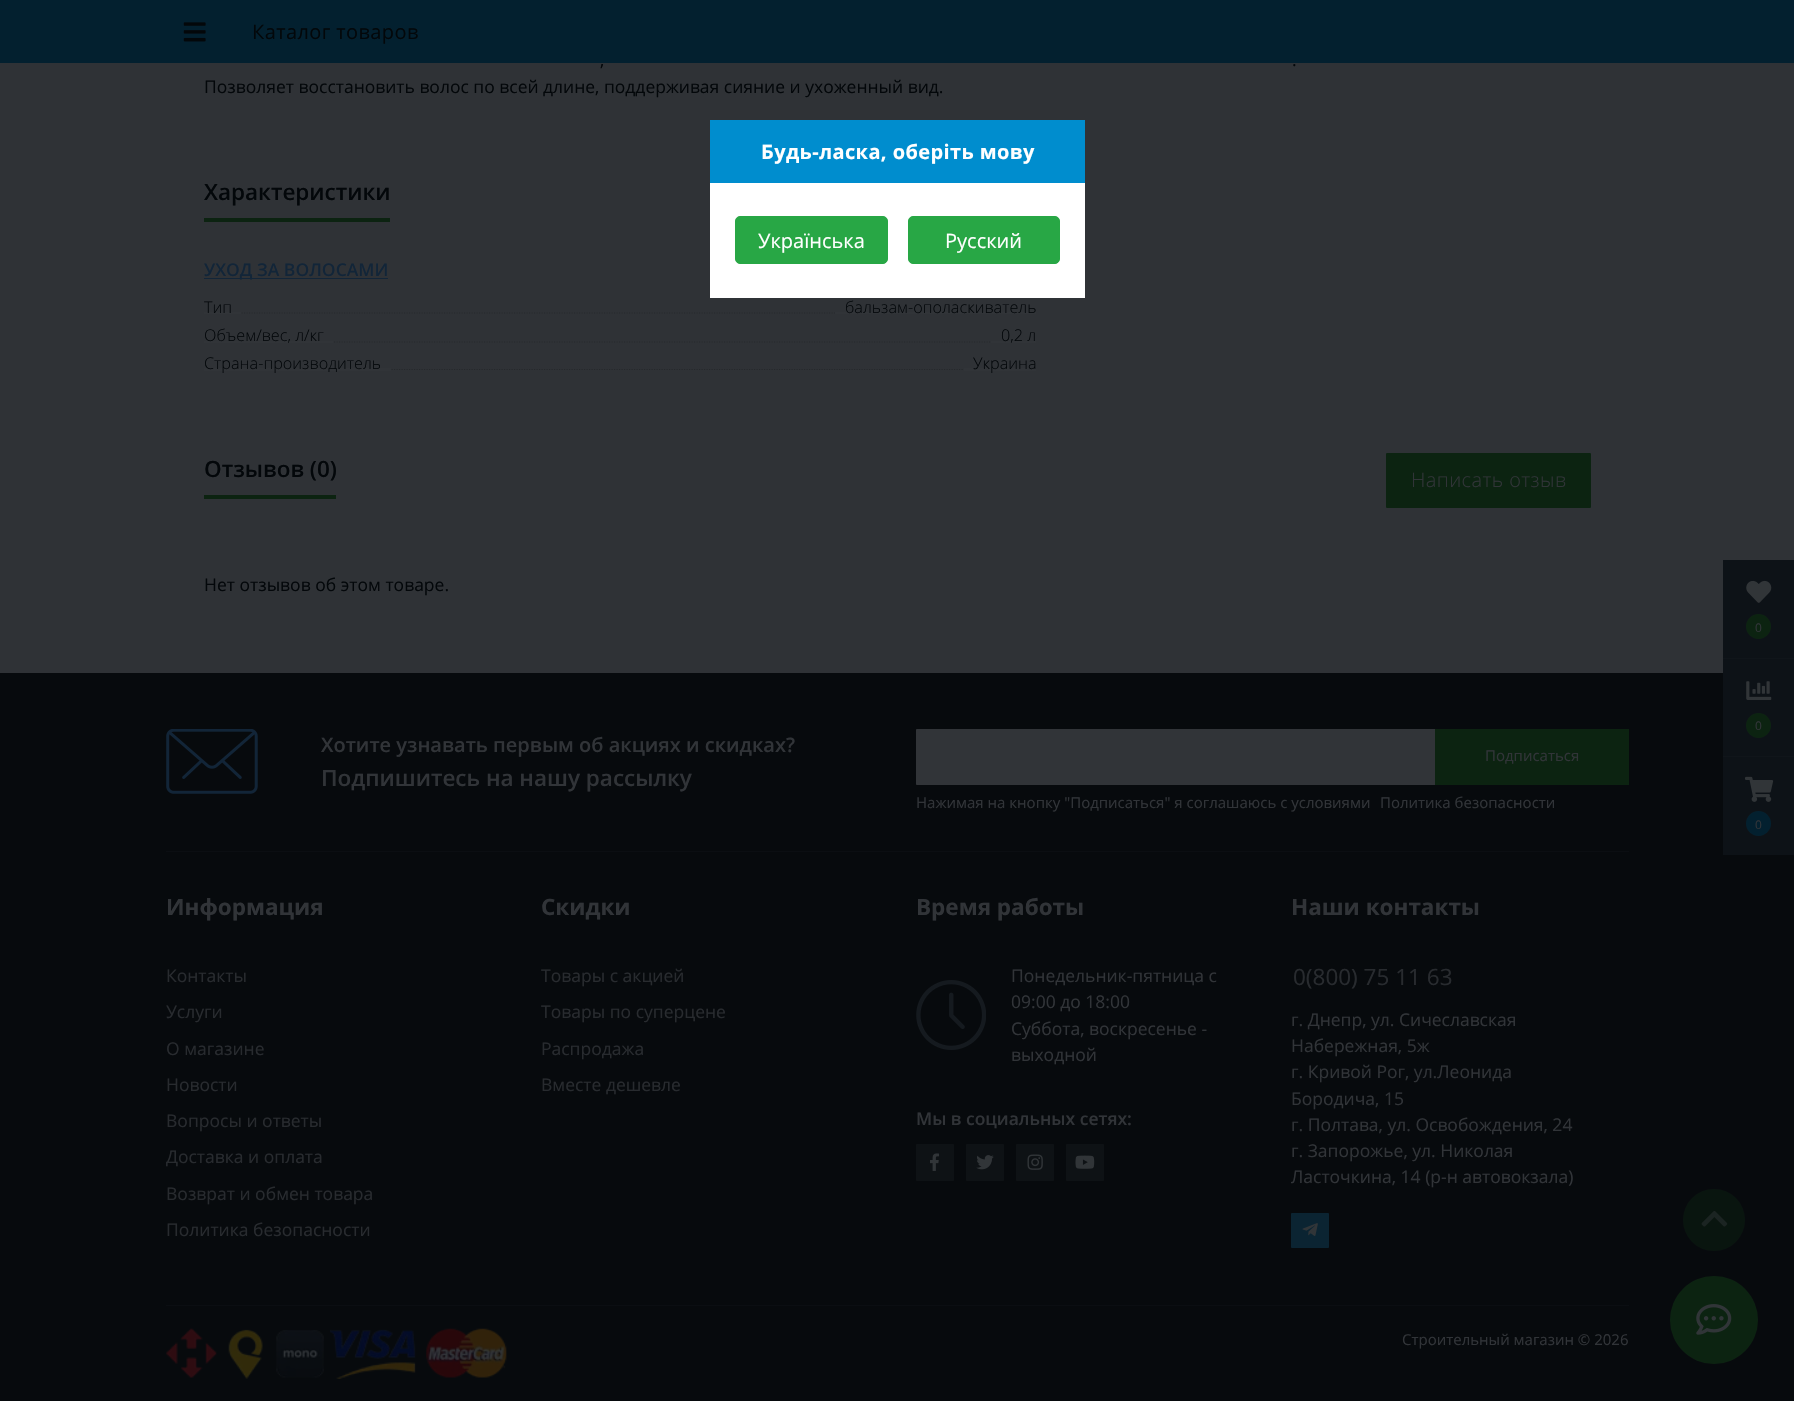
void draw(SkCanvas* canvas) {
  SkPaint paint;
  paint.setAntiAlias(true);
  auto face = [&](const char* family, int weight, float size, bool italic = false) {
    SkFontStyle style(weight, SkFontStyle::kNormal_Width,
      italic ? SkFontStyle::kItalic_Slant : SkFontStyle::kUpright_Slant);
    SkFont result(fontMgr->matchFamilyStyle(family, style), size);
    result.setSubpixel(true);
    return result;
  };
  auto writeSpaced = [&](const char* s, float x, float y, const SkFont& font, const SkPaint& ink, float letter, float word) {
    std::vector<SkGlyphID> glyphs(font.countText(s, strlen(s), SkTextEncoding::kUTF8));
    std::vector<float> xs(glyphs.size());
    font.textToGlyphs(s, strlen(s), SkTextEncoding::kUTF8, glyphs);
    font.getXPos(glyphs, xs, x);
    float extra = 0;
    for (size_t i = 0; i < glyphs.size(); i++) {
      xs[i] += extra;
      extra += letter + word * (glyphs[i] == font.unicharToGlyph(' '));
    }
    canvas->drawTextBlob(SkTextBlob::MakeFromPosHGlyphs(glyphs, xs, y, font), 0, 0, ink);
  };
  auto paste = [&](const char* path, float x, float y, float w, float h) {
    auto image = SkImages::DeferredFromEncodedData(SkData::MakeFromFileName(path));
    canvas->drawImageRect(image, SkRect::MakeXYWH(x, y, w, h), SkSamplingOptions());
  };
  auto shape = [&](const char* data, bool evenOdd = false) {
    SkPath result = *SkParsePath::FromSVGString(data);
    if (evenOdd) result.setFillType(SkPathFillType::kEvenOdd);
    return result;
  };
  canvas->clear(0xff2f3236);
  paint.setColor(0xff03202f);
  canvas->drawRect(SkRect::MakeXYWH(0, 0, 1794, 63), paint);
  paste("img/1.png", 183, 22, 23, 20);
  paint.setColor(0xff0c2311);
  canvas->drawRect(SkRect::MakeXYWH(204, 218, 186, 4), paint);
  paint.setColor(0xff122538);
  canvas->drawRect(SkRect::MakeXYWH(204, 278, 184, 1), paint);
  paint.setStroke(true);
  paint.setStrokeWidth(1.2f);
  paint.setColor(0xff25282b);
  paint.setPathEffect(SkDashPathEffect::Make({{1.25f, 1.25f}}, 0));
  canvas->drawPath(shape("M204 313H1036"), paint);
  paint.setPathEffect(nullptr);
  paint.setStroke(false);
  paint.setColor(0xff313438);
  canvas->drawRect(SkRect::MakeXYWH(204, 312, 37, 2), paint);
  canvas->drawRect(SkRect::MakeXYWH(835, 312, 201, 2), paint);
  paint.setStroke(true);
  paint.setColor(0xff25282b);
  paint.setPathEffect(SkDashPathEffect::Make({{1.25f, 1.25f}}, 0));
  canvas->drawPath(shape("M204 342H1036"), paint);
  paint.setPathEffect(nullptr);
  paint.setStroke(false);
  paint.setColor(0xff313438);
  canvas->drawRect(SkRect::MakeXYWH(204, 341, 129, 2), paint);
  canvas->drawRect(SkRect::MakeXYWH(991, 341, 45, 2), paint);
  paint.setStroke(true);
  paint.setColor(0xff25282b);
  paint.setPathEffect(SkDashPathEffect::Make({{1.25f, 1.25f}}, 0));
  canvas->drawPath(shape("M204 369.5H1036"), paint);
  paint.setPathEffect(nullptr);
  paint.setStroke(false);
  {
    const struct { float x, y, w, h; SkColor color; } items[] = {
      {204, 368, 187, 3, 0xff313438},
      {964, 368, 72, 3, 0xff313438},
      {204, 495, 132, 4, 0xff0c2311},
    };
    for (auto [x, y, w, h, color] : items) {
      paint.setColor(color);
      canvas->drawRect(SkRect::MakeXYWH(x, y, w, h), paint);
    }
  }
  canvas->drawRoundRect(SkRect::MakeXYWH(1386, 453, 205, 55), 1, 1, paint);
  paint.setColor(0xff008dce);
  canvas->drawRect(SkRect::MakeXYWH(710, 120, 375, 63), paint);
  paint.setColor(0xffffffff);
  canvas->drawRect(SkRect::MakeXYWH(710, 183, 375, 115), paint);
  paint.setColor(0xff28a745);
  canvas->drawRoundRect(SkRect::MakeXYWH(735.5f, 216.5f, 152, 47), 4.5f, 4.5f, paint);
  paint.setStroke(true);
  paint.setStrokeWidth(1);
  canvas->drawRoundRect(SkRect::MakeXYWH(735.5f, 216.5f, 152, 47), 4.5f, 4.5f, paint);
  paint.setStroke(false);
  canvas->drawRoundRect(SkRect::MakeXYWH(908.5f, 216.5f, 151, 47), 4.5f, 4.5f, paint);
  paint.setStroke(true);
  canvas->drawRoundRect(SkRect::MakeXYWH(908.5f, 216.5f, 151, 47), 4.5f, 4.5f, paint);
  paint.setStroke(false);
  paint.setColor(0xff070a0d);
  canvas->drawRect(SkRect::MakeXYWH(0, 673, 1794, 728), paint);
  paste("img/2.png", 166, 729, 92, 65);
  paint.setColor(0xff313438);
  canvas->drawPath(shape("M917 729H1435V785H917C916.5 785 916 784.5 916 784V730C916 729.5 916.5 729 917 729Z"), paint);
  paint.setColor(0xff0c2311);
  canvas->drawRect(SkRect::MakeXYWH(1435, 729, 194, 56), paint);
  paint.setColor(0xff0b0e12);
  canvas->drawRect(SkRect::MakeXYWH(166, 851, 1463, 1), paint);
  paste("img/3.png", 916, 980, 70, 70);
  paint.setColor(0xff0e1215);
  canvas->drawRoundRect(SkRect::MakeXYWH(916, 1144, 38, 37), 1, 1, paint);
  paste("img/4.png", 930, 1153, 10, 18);
  canvas->drawRoundRect(SkRect::MakeXYWH(966, 1144, 38, 37), 1, 1, paint);
  paste("img/5.png", 976, 1155, 18, 15);
  canvas->drawRoundRect(SkRect::MakeXYWH(1016, 1144, 38, 37), 1, 1, paint);
  paste("img/6.png", 1027, 1154, 16, 16);
  canvas->drawRoundRect(SkRect::MakeXYWH(1066, 1144, 38, 37), 1, 1, paint);
  paste("img/7.png", 1075, 1155, 20, 14);
  paint.setColor(0xff0b2432);
  canvas->drawRoundRect(SkRect::MakeXYWH(1291, 1213, 38, 35), 1, 1, paint);
  paste("img/8.png", 1302, 1223, 16, 13);
  paint.setColor(0xff0b0e12);
  canvas->drawRect(SkRect::MakeXYWH(166, 1305, 1463, 1), paint);
  paste("img/9.png", 166, 1328, 51, 50);
  paste("img/10.png", 228, 1329, 35, 50);
  paste("img/11.png", 276, 1330, 48, 48);
  paste("img/12.png", 330, 1329, 86, 50);
  paste("img/13.png", 426, 1328, 81, 50);
  paint.setColor(0xff09150f);
  canvas->drawCircle(1714, 1220, 31, paint);
  paste("img/14.png", 1701, 1211, 27, 16);
  paint.setColor(0xff0c2311);
  canvas->drawCircle(1714, 1320, 44, paint);
  paste("img/15.png", 1696, 1304, 36, 31);
  paint.setColor(0xff0d1217);
  canvas->drawRect(SkRect::MakeXYWH(1723, 560, 71, 295), paint);
  paste("img/16.png", 1746, 580, 26, 23);
  paint.setColor(0xff0c2311);
  canvas->drawCircle(1758.5f, 626.5f, 12.5f, paint);
  paint.setColor(0xff10151a);
  canvas->drawRect(SkRect::MakeXYWH(1723, 658, 71, 1), paint);
  paste("img/17.png", 1746, 681, 26, 19);
  paint.setColor(0xff0c2311);
  canvas->drawCircle(1758.5f, 725.5f, 12.5f, paint);
  paint.setColor(0xff10151a);
  canvas->drawRect(SkRect::MakeXYWH(1723, 756, 71, 1), paint);
  paste("img/18.png", 1745, 776, 29, 26);
  paint.setColor(0xff03202f);
  canvas->drawCircle(1758.5f, 823.5f, 12.5f, paint);
  auto f0 = face("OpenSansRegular", 400, 20);
  paint.setColor(0xff03070a);
  writeSpaced("Каталог товаров", 252, 39, f0, paint, 0.4f, 0);
  auto f1 = face("OpenSansRegular", 400, 17.5f);
  {
    const struct { const char* s; float x, y; } items[] = {
      {",", 600, 66},
      {".", 1292, 66},
      {"Позволяет восстановить волос по всей длине, поддерживая сияние и ухоженный вид.", 204, 93},
    };
    for (auto [s, x, y] : items) {
      canvas->drawString(s, x, y, f1, paint);
    }
  }
  auto f2 = face("Open Sans", 600, 22.5f);
  canvas->drawString("Характеристики", 204, 200, f2, paint);
  auto f3 = face("Open Sans", 600, 17.5f);
  paint.setColor(0xff122538);
  canvas->drawString("УХОД ЗА ВОЛОСАМИ", 204, 276, f3, paint);
  auto f4 = face("Open Sans", 300, 16.25f);
  paint.setColor(0xff03070a);
  {
    const struct { const char* s; float x, y; } items[] = {
      {"Тип", 204, 313},
      {"бальзам-ополаскиватель", 845, 313},
      {"Объем/вес, л/кг", 204, 341},
      {"0,2 л", 1001, 341},
      {"Страна-производитель", 204, 369},
      {"Украина", 973, 369},
    };
    for (auto [s, x, y] : items) {
      canvas->drawString(s, x, y, f4, paint);
    }
  }
  canvas->drawString("Отзывов (0)", 204, 477, f2, paint);
  auto f5 = face("Open Sans", 300, 20);
  paint.setColor(0xff313438);
  writeSpaced("Написать отзыв", 1411, 487, f5, paint, 0.4f, 0);
  paint.setColor(0xff03070a);
  canvas->drawString("Нет отзывов об этом товаре.", 204, 591, f1, paint);
  auto f6 = face("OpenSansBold", 700, 20);
  paint.setColor(0xffffffff);
  writeSpaced("Будь-ласка, оберіть мову", 761, 159, f6, paint, 0.4f, 0);
  canvas->drawString("Українська", 758, 248, f0, paint);
  canvas->drawString("Русский", 945, 248, f0, paint);
  auto f7 = face("Open Sans", 600, 20);
  paint.setColor(0xff313438);
  canvas->drawString("Хотите узнавать первым об акциях и скидках?", 321, 752, f7, paint);
  canvas->drawString("Подпишитесь на нашу рассылку", 321, 786, f2, paint);
  auto f8 = face("OpenSansRegular", 400, 15);
  {
    const struct { const char* s; float x, y; } items[] = {
      {"Подписаться", 1485, 761},
      {"Нажимая на кнопку \"Подписаться\" я соглашаюсь с условиями", 916, 808},
      {"Политика безопасности", 1380, 808},
    };
    for (auto [s, x, y] : items) {
      canvas->drawString(s, x, y, f8, paint);
    }
  }
  auto f9 = face("OpenSansBold", 700, 22.5f);
  canvas->drawString("Информация", 166, 915, f9, paint);
  paint.setColor(0xff282b2f);
  {
    const struct { const char* s; float x, y; } items[] = {
      {"Контакты", 166, 982},
      {"Услуги", 166, 1018},
      {"О магазине", 166, 1055},
      {"Новости", 166, 1091},
      {"Вопросы и ответы", 166, 1127},
      {"Доставка и оплата", 166, 1163},
      {"Возврат и обмен товара", 166, 1200},
      {"Политика безопасности", 166, 1236},
    };
    for (auto [s, x, y] : items) {
      canvas->drawString(s, x, y, f1, paint);
    }
  }
  paint.setColor(0xff313438);
  canvas->drawString("Скидки", 541, 915, f9, paint);
  paint.setColor(0xff282b2f);
  {
    const struct { const char* s; float x, y; } items[] = {
      {"Товары с акцией", 541, 982},
      {"Товары по суперцене", 541, 1018},
      {"Распродажа", 541, 1055},
      {"Вместе дешевле", 541, 1091},
    };
    for (auto [s, x, y] : items) {
      canvas->drawString(s, x, y, f1, paint);
    }
  }
  paint.setColor(0xff313438);
  canvas->drawString("Время работы", 916, 915, f9, paint);
  {
    const struct { const char* s; float x, y; } items[] = {
      {"Понедельник-пятница с", 1011, 982},
      {"09:00 до 18:00", 1011, 1008},
      {"Суббота, воскресенье -", 1011, 1035},
      {"выходной", 1011, 1061},
    };
    for (auto [s, x, y] : items) {
      canvas->drawString(s, x, y, f1, paint);
    }
  }
  canvas->drawString("Мы в социальных сетях:", 916, 1125, f3, paint);
  canvas->drawString("Наши контакты", 1291, 915, f9, paint);
  auto f10 = face("OpenSansRegular", 400, 22.5f);
  paint.setColor(0xff282b2f);
  canvas->drawString("0(800) 75 11 63", 1293, 985, f10, paint);
  paint.setColor(0xff313438);
  {
    const struct { const char* s; float x, y; } items[] = {
      {"г. Днепр, ул. Сичеславская", 1291, 1026},
      {"Набережная, 5ж", 1291, 1052},
      {"г. Кривой Рог, ул.Леонида", 1291, 1078},
      {"Бородича, 15", 1291, 1105},
      {"г. Полтава, ул. Освобождения, 24", 1291, 1131},
      {"г. Запорожье, ул. Николая", 1291, 1157},
      {"Ласточкина, 14 (р-н автовокзала)", 1291, 1183},
    };
    for (auto [s, x, y] : items) {
      canvas->drawString(s, x, y, f1, paint);
    }
  }
  canvas->drawString("Строительный магазин © 2026", 1402, 1345, f8, paint);
  auto f11 = face("OpenSansRegular", 400, 12);
  {
    const struct { const char* s; float x, y; } items[] = {
      {"0", 1755, 632},
      {"0", 1755, 730},
      {"0", 1755, 829},
    };
    for (auto [s, x, y] : items) {
      canvas->drawString(s, x, y, f11, paint);
    }
  }
}
